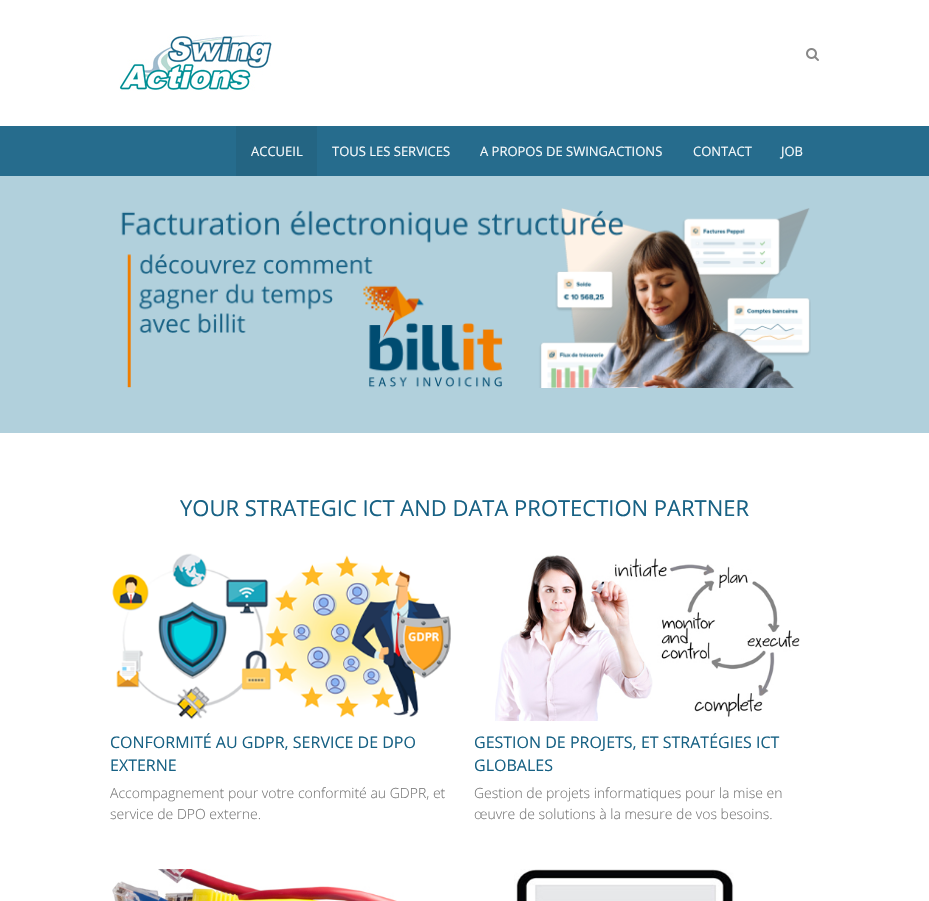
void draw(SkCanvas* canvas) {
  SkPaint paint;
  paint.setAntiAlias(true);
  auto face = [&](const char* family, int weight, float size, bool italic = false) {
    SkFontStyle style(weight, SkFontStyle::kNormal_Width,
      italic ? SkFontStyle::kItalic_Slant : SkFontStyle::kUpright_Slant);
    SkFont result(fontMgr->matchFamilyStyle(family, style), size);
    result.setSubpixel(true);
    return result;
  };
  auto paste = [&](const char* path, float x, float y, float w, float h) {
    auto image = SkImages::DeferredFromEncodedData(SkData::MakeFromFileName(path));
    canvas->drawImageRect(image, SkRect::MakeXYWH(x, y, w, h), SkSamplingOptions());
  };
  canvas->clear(0xffffffff);
  paste("img/1.png", 119, 35, 153, 56);
  paste("img/2.png", 806, 48, 13, 13);
  {
    const struct { float x, y, w, h; SkColor color; } items[] = {
      {0, 176, 929, 257, 0xffb1d0dc},
      {0, 126, 929, 50, 0xff266c8d},
      {236, 126, 81, 50, 0xff246583},
    };
    for (auto [x, y, w, h, color] : items) {
      paint.setColor(color);
      canvas->drawRect(SkRect::MakeXYWH(x, y, w, h), paint);
    }
  }
  paste("img/3.png", 121, 208, 690, 180);
  paste("img/4.png", 112, 553, 339, 167);
  paste("img/5.png", 495, 555, 305, 166);
  paste("img/6.png", 112, 869, 285, 32);
  paste("img/7.png", 514, 869, 220, 32);
  auto f0 = face("Open Sans", 400, 13);
  paint.setColor(0xfff7fafc);
  {
    const struct { const char* s; float x, y; } items[] = {
      {"ACCUEIL", 251, 156},
      {"TOUS LES SERVICES", 332, 156},
      {"A PROPOS DE SWINGACTIONS", 480, 156},
      {"CONTACT", 693, 156},
      {"JOB", 781, 156},
    };
    for (auto [s, x, y] : items) {
      canvas->drawString(s, x, y, f0, paint);
    }
  }
  auto f1 = face("Open Sans", 400, 22);
  paint.setColor(0xff176184);
  canvas->drawString("YOUR STRATEGIC ICT AND DATA PROTECTION PARTNER", 180, 516, f1, paint);
  auto f2 = face("Open Sans", 400, 16);
  canvas->drawString("CONFORMITÉ AU GDPR, SERVICE DE DPO", 110, 748, f2, paint);
  canvas->drawString("EXTERNE", 110, 771, f2, paint);
  auto f3 = face("Open Sans", 300, 14);
  paint.setColor(0xff777777);
  canvas->drawString("Accompagnement pour votre conformité au GDPR, et", 110, 798, f3, paint);
  canvas->drawString("service de DPO externe.", 110, 819, f3, paint);
  paint.setColor(0xff176184);
  canvas->drawString("GESTION DE PROJETS, ET STRATÉGIES ICT", 474, 748, f2, paint);
  canvas->drawString("GLOBALES", 474, 771, f2, paint);
  paint.setColor(0xff777777);
  canvas->drawString("Gestion de projets informatiques pour la mise en", 474, 798, f3, paint);
  canvas->drawString("œuvre de solutions à la mesure de vos besoins.", 474, 819, f3, paint);
}
